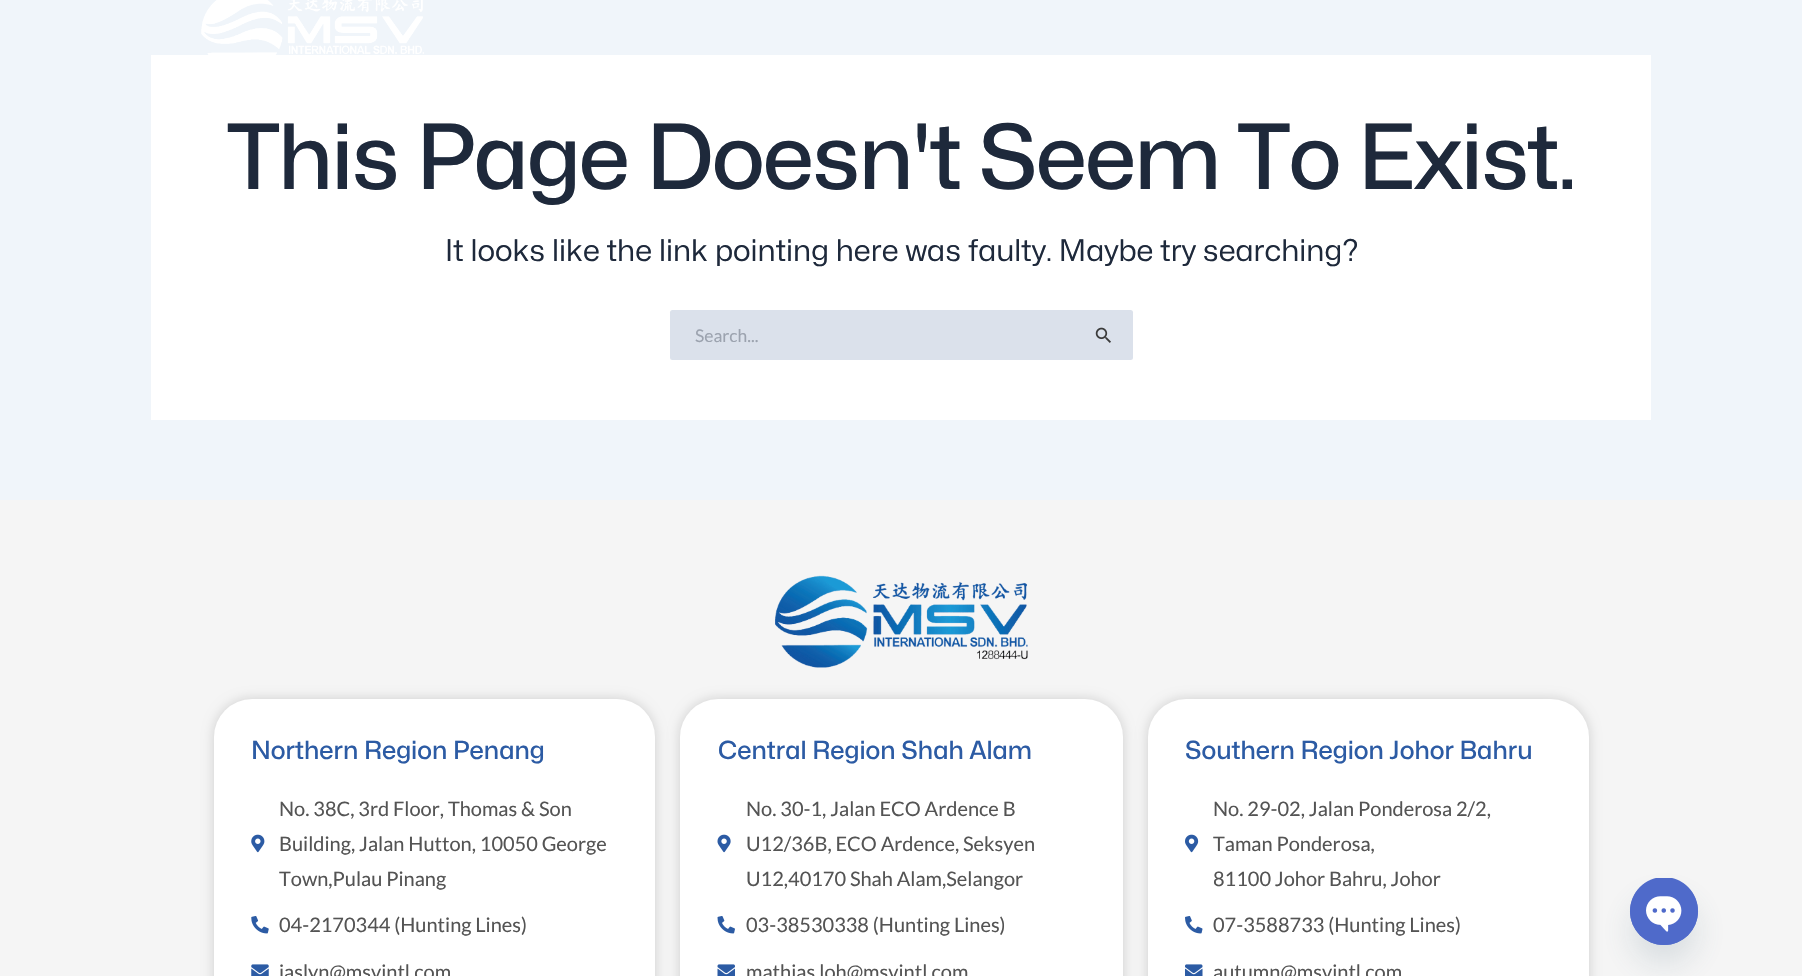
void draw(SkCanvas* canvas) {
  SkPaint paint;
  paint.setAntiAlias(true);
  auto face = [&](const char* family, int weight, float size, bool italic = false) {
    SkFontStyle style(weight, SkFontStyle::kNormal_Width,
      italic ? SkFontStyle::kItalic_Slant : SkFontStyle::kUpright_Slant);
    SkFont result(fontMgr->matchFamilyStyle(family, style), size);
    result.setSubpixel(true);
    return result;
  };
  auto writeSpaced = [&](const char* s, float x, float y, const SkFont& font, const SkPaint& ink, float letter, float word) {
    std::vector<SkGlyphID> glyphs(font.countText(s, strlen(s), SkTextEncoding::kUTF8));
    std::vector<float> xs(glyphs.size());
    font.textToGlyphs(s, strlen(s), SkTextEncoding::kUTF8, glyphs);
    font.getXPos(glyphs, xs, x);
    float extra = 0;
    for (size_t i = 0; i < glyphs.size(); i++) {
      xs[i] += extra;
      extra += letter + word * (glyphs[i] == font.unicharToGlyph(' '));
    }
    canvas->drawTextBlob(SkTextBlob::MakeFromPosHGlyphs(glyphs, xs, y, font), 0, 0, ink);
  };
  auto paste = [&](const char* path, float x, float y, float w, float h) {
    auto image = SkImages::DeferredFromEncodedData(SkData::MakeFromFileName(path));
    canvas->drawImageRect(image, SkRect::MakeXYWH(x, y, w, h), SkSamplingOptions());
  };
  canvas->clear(0xfff0f5fa);
  paste("img/1.png", 201, 0, 223, 55);
  paint.setColor(0xffffffff);
  canvas->drawRect(SkRect::MakeXYWH(151, 55, 1500, 365), paint);
  paint.setColor(0xffdbe1eb);
  canvas->drawRoundRect(SkRect::MakeXYWH(670, 310, 463, 50), 2.5f, 2.5f, paint);
  paste("img/2.png", 1095, 327, 16, 16);
  paint.setColor(0xfff5f5f5);
  canvas->drawRect(SkRect::MakeXYWH(0, 500, 1802, 476), paint);
  paste("img/3.png", 775, 575, 253, 93);
  paint.setColor(0x29000000);
  paint.setMaskFilter(SkMaskFilter::MakeBlur(kNormal_SkBlurStyle, 6));
  canvas->drawRoundRect(SkRect::MakeXYWH(214, 699, 441, 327), 38, 38, paint);
  paint.setMaskFilter(nullptr);
  paint.setColor(0xffffffff);
  canvas->drawRoundRect(SkRect::MakeXYWH(214, 699, 441, 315), 38, 38, paint);
  paste("img/4.png", 251, 834, 14, 19);
  paste("img/5.png", 251, 916, 18, 18);
  paste("img/6.png", 251, 964, 18, 12);
  paint.setColor(0x29000000);
  paint.setMaskFilter(SkMaskFilter::MakeBlur(kNormal_SkBlurStyle, 6));
  canvas->drawRoundRect(SkRect::MakeXYWH(680, 699, 443, 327), 38, 38, paint);
  paint.setMaskFilter(nullptr);
  paint.setColor(0xffffffff);
  canvas->drawRoundRect(SkRect::MakeXYWH(680, 699, 443, 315), 38, 38, paint);
  paste("img/7.png", 717, 834, 14, 19);
  paste("img/8.png", 717, 916, 18, 18);
  paste("img/9.png", 717, 964, 18, 12);
  paint.setColor(0x29000000);
  paint.setMaskFilter(SkMaskFilter::MakeBlur(kNormal_SkBlurStyle, 6));
  canvas->drawRoundRect(SkRect::MakeXYWH(1148, 699, 441, 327), 38, 38, paint);
  paint.setMaskFilter(nullptr);
  paint.setColor(0xffffffff);
  canvas->drawRoundRect(SkRect::MakeXYWH(1148, 699, 441, 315), 38, 38, paint);
  paste("img/10.png", 1185, 834, 14, 19);
  paste("img/11.png", 1185, 916, 18, 18);
  paste("img/12.png", 1185, 964, 18, 12);
  paint.setColor(0x2949687e);
  paint.setMaskFilter(SkMaskFilter::MakeBlur(kNormal_SkBlurStyle, 15));
  canvas->drawRoundRect(SkRect::MakeXYWH(1630, 898, 68, 67), 33.5f, 33.5f, paint);
  paint.setMaskFilter(nullptr);
  paint.setColor(0xff4f6aca);
  canvas->drawRoundRect(SkRect::MakeXYWH(1630, 878, 68, 67), 33.5f, 33.5f, paint);
  paste("img/13.png", 1630, 878, 68, 67);
  auto f0 = face("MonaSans", 500, 90);
  paint.setColor(0xff1e293b);
  writeSpaced("This Page Doesn't Seem To Exist.", 227, 189, f0, paint, -2, 0);
  auto f1 = face("MonaSans", 400, 30, true);
  canvas->drawString("It looks like the link pointing here was faulty. Maybe try searching?", 445, 261, f1, paint);
  auto f2 = face("Lato", 400, 17.5f);
  paint.setColor(0xff9ca3af);
  canvas->drawString("Search...", 695, 342, f2, paint);
  auto f3 = face("MonaSans", 500, 25);
  paint.setColor(0xff2c5ba4);
  canvas->drawString("Northern Region Penang", 251, 759, f3, paint);
  auto f4 = face("Lato", 400, 20);
  paint.setColor(0xff545454);
  {
    const struct { const char* s; float x, y; } items[] = {
      {"No. 38C, 3rd Floor, Thomas & Son", 279, 816},
      {"Building, Jalan Hutton, 10050 George", 279, 851},
      {"Town,Pulau Pinang", 279, 886},
      {"04-2170344 (Hunting Lines)", 279, 932},
      {"jaslyn@msvintl.com", 279, 979},
    };
    for (auto [s, x, y] : items) {
      canvas->drawString(s, x, y, f4, paint);
    }
  }
  paint.setColor(0xff2c5ba4);
  canvas->drawString("Central Region Shah Alam", 718, 759, f3, paint);
  paint.setColor(0xff545454);
  {
    const struct { const char* s; float x, y; } items[] = {
      {"No. 30-1, Jalan ECO Ardence B", 746, 816},
      {"U12/36B, ECO Ardence, Seksyen", 746, 851},
      {"U12,40170 Shah Alam,Selangor", 746, 886},
      {"03-38530338 (Hunting Lines)", 746, 932},
      {"mathias.loh@msvintl.com", 746, 979},
    };
    for (auto [s, x, y] : items) {
      canvas->drawString(s, x, y, f4, paint);
    }
  }
  paint.setColor(0xff2c5ba4);
  canvas->drawString("Southern Region Johor Bahru", 1185, 759, f3, paint);
  paint.setColor(0xff545454);
  {
    const struct { const char* s; float x, y; } items[] = {
      {"No. 29-02, Jalan Ponderosa 2/2,", 1213, 816},
      {"Taman Ponderosa,", 1213, 851},
      {"81100 Johor Bahru, Johor", 1213, 886},
      {"07-3588733 (Hunting Lines)", 1213, 932},
      {"autumn@msvintl.com", 1213, 979},
    };
    for (auto [s, x, y] : items) {
      canvas->drawString(s, x, y, f4, paint);
    }
  }
}
